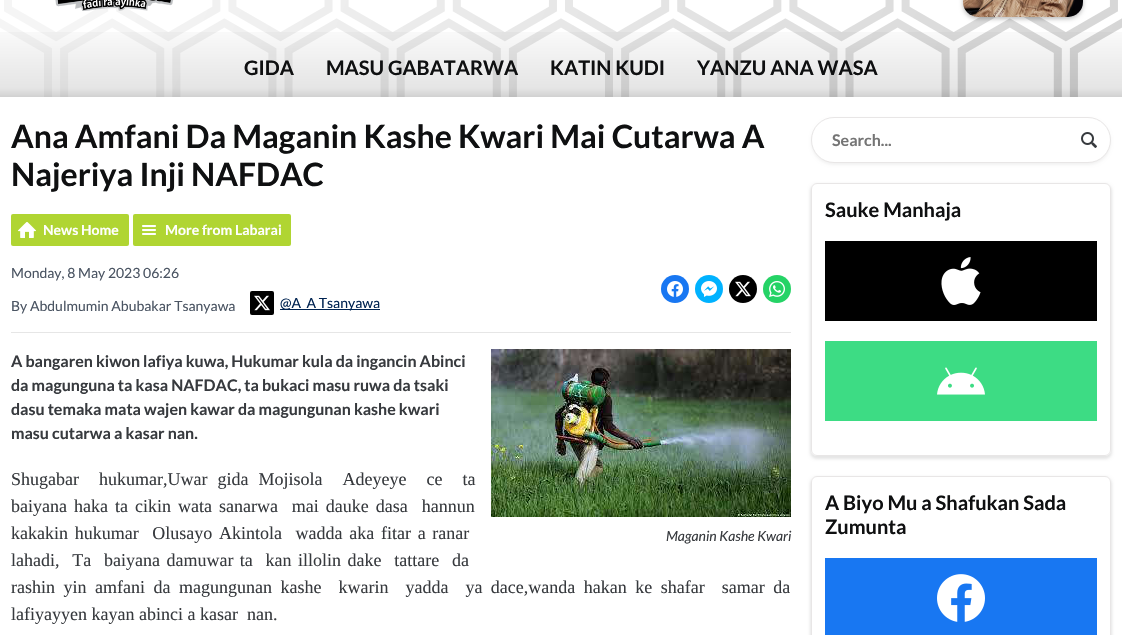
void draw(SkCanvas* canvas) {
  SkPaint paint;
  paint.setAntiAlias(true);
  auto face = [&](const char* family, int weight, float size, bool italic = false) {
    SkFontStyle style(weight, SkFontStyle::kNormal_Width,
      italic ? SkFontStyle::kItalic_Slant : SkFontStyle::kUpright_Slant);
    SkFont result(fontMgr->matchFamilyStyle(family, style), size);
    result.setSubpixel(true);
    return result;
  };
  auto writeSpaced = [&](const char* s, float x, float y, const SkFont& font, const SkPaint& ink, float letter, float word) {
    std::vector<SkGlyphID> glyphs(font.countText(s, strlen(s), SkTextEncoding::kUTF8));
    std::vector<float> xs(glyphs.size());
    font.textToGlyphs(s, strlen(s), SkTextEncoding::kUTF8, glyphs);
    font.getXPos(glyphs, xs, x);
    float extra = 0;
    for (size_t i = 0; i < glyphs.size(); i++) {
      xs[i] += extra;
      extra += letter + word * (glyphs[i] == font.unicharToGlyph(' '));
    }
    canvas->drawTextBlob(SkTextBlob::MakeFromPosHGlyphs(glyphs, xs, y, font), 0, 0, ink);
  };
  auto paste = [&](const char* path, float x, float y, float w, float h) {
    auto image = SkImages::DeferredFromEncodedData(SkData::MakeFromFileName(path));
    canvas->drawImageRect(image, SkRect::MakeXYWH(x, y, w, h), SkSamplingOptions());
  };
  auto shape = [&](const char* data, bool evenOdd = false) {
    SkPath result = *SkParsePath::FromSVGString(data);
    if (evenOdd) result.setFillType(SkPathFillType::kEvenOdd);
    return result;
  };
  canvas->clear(0xffffffff);
  paste("img/1.png", 0, 0, 1122, 97);
  paste("img/2.png", 55, 0, 119, 11);
  paint.setColor(0x40000000);
  paint.setMaskFilter(SkMaskFilter::MakeBlur(kNormal_SkBlurStyle, 2));
  canvas->drawRoundRect(SkRect::MakeXYWH(963, -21, 120, 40), 15, 15, paint);
  paint.setMaskFilter(nullptr);
  paste("img/3.png", 963, 0, 120, 17);
  {
    const SkColor colors[] = {0x00000000, 0x1a000000, 0x2e000000};
    const float stops[] = {0, 0.89f, 1};
    const SkPoint ends[] = {{561, 17}, {561, 97}};
    paint.setShader(SkGradientShader::MakeLinear(ends, colors, stops, 3, SkTileMode::kClamp));
    paint.setAlpha(255);
  }
  canvas->drawRect(SkRect::MakeXYWH(0, 32, 1122, 65), paint);
  paint.setShader(nullptr);
  paint.setColor(0xffb0d532);
  canvas->drawRoundRect(SkRect::MakeXYWH(11, 214, 118, 32), 2, 2, paint);
  paste("img/4.png", 18, 222, 18, 16);
  canvas->drawRoundRect(SkRect::MakeXYWH(133, 214, 158, 32), 2, 2, paint);
  paste("img/5.png", 142, 225, 14, 10);
  paint.setColor(0xffe6e6e6);
  canvas->drawRect(SkRect::MakeXYWH(11, 332, 780, 1), paint);
  paint.setColor(0xff000000);
  canvas->drawRoundRect(SkRect::MakeXYWH(250, 291, 24, 24), 2, 2, paint);
  paste("img/6.png", 254, 295, 16, 16);
  paint.setColor(0xff002351);
  canvas->drawRect(SkRect::MakeXYWH(280, 309, 100, 1), paint);
  paint.setColor(0xff1877f2);
  canvas->drawCircle(675, 289, 14, paint);
  paste("img/7.png", 667, 281, 16, 16);
  paint.setColor(0xff00b2ff);
  canvas->drawCircle(709, 289, 14, paint);
  paste("img/8.png", 701, 281, 16, 16);
  paint.setColor(0xff000000);
  canvas->drawCircle(743, 289, 14, paint);
  paste("img/6.png", 735, 281, 16, 16);
  paint.setColor(0xff25d366);
  canvas->drawCircle(777, 289, 14, paint);
  paste("img/9.png", 769, 281, 16, 16);
  paste("img/10.png", 491, 349, 300, 168);
  paint.setColor(0x0d000000);
  paint.setMaskFilter(SkMaskFilter::MakeBlur(kNormal_SkBlurStyle, 1.5f));
  canvas->drawRoundRect(SkRect::MakeXYWH(811, 119, 300, 46), 23, 23, paint);
  paint.setMaskFilter(nullptr);
  paint.setColor(0xffffffff);
  canvas->drawRoundRect(SkRect::MakeXYWH(811.5f, 117.5f, 299, 45), 22.5f, 22.5f, paint);
  paint.setStroke(true);
  paint.setStrokeWidth(1);
  paint.setColor(0xffe8e6e6);
  canvas->drawRoundRect(SkRect::MakeXYWH(811.5f, 117.5f, 299, 45), 22.5f, 22.5f, paint);
  paste("img/11.png", 1081, 132, 16, 16);
  canvas->save();
  canvas->clipPath(shape("M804 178H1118V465H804ZM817 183H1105C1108.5 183 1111 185.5 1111 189V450C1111 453.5 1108.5 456 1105 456H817C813.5 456 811 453.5 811 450V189C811 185.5 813.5 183 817 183Z", true), true);
  paint.setStroke(false);
  paint.setColor(0x1a000000);
  paint.setMaskFilter(SkMaskFilter::MakeBlur(kNormal_SkBlurStyle, 1.5f));
  canvas->drawRoundRect(SkRect::MakeXYWH(810, 184, 302, 275), 7, 7, paint);
  paint.setMaskFilter(nullptr);
  canvas->restore();
  paint.setStroke(true);
  paint.setColor(0xffe8e6e6);
  canvas->drawRoundRect(SkRect::MakeXYWH(811.5f, 183.5f, 299, 272), 5.5f, 5.5f, paint);
  paint.setStroke(false);
  paint.setColor(0xff000000);
  canvas->drawRect(SkRect::MakeXYWH(825, 241, 272, 80), paint);
  paste("img/12.png", 941, 257, 40, 48);
  paint.setColor(0xff3ddc84);
  canvas->drawRect(SkRect::MakeXYWH(825, 341, 272, 80), paint);
  paste("img/13.png", 937, 367, 48, 28);
  canvas->save();
  canvas->clipPath(shape("M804 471H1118V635H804ZM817 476H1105C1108.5 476 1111 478.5 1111 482V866C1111 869.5 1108.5 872 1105 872H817C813.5 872 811 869.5 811 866V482C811 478.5 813.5 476 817 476Z", true), true);
  paint.setColor(0x1a000000);
  paint.setMaskFilter(SkMaskFilter::MakeBlur(kNormal_SkBlurStyle, 1.5f));
  canvas->drawRoundRect(SkRect::MakeXYWH(810, 477, 302, 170), 7, 7, paint);
  paint.setMaskFilter(nullptr);
  canvas->restore();
  paint.setStroke(true);
  paint.setColor(0xffe8e6e6);
  canvas->drawRoundRect(SkRect::MakeXYWH(811.5f, 476.5f, 299, 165), 5.5f, 5.5f, paint);
  paint.setStroke(false);
  paint.setColor(0xff1877f2);
  canvas->drawRect(SkRect::MakeXYWH(825, 558, 272, 77), paint);
  paste("img/14.png", 937, 574, 48, 48);
  auto f0 = face("Lato", 700, 20);
  paint.setColor(0xff0f1011);
  {
    const struct { const char* s; float x, y; } items[] = {
      {"GIDA", 244, 75},
      {"MASU GABATARWA", 326, 75},
      {"KATIN KUDI", 550, 75},
      {"YANZU ANA WASA", 697, 75},
    };
    for (auto [s, x, y] : items) {
      canvas->drawString(s, x, y, f0, paint);
    }
  }
  auto f1 = face("Lato", 700, 32);
  canvas->drawString("Ana Amfani Da Maganin Kashe Kwari Mai Cutarwa A", 11, 148, f1, paint);
  canvas->drawString("Najeriya Inji NAFDAC", 11, 186, f1, paint);
  auto f2 = face("Lato", 700, 14);
  paint.setColor(0xffffffff);
  canvas->drawString("News Home", 43, 235, f2, paint);
  canvas->drawString("More from Labarai", 165, 235, f2, paint);
  auto f3 = face("Lato", 400, 14);
  paint.setColor(0xff4b5563);
  canvas->drawString("Monday, 8 May 2023 06:26", 11, 278, f3, paint);
  canvas->drawString("By Abdulmumin Abubakar Tsanyawa", 11, 311, f3, paint);
  paint.setColor(0xff002351);
  canvas->drawString("@A_A Tsanyawa", 280, 308, f3, paint);
  auto f4 = face("Lato", 700, 16);
  paint.setColor(0xff373a3e);
  {
    const struct { const char* s; float x, y; } items[] = {
      {"A bangaren kiwon lafiya kuwa, Hukumar kula da ingancin Abinci", 11, 367},
      {"da magunguna ta kasa NAFDAC, ta bukaci masu ruwa da tsaki", 11, 391},
      {"dasu temaka mata wajen kawar da magungunan kashe kwari", 11, 415},
      {"masu cutarwa a kasar nan.", 11, 439},
    };
    for (auto [s, x, y] : items) {
      canvas->drawString(s, x, y, f4, paint);
    }
  }
  auto f5 = face("Liberation Serif", 400, 18);
  writeSpaced("Shugabar  hukumar,Uwar gida Mojisola  Adeyeye  ce  ta", 11, 485, f5, paint, 0, 5.5f);
  writeSpaced("baiyana haka ta cikin wata sanarwa  mai dauke dasa  hannun", 11, 512, f5, paint, 0, 2.5f);
  writeSpaced("kakakin hukumar  Olusayo Akintola  wadda aka fitar a ranar", 11, 539, f5, paint, 0, 2.25f);
  writeSpaced("lahadi,  Ta  baiyana damuwar ta  kan illolin dake  tattare  da", 11, 566, f5, paint, 0, 1.9f);
  writeSpaced("rashin yin amfani da magungunan kashe  kwarin  yadda  ya dace,wanda hakan ke shafar  samar da", 11, 593, f5, paint, 0, 4);
  canvas->drawString("lafiyayyen kayan abinci a kasar  nan.", 11, 620, f5, paint);
  auto f6 = face("Lato", 400, 14, true);
  canvas->drawString("Maganin Kashe Kwari", 666, 541, f6, paint);
  paint.setColor(0xff757575);
  canvas->drawString("Search...", 832, 146, f4, paint);
  paint.setColor(0xff0f1011);
  {
    const struct { const char* s; float x, y; } items[] = {
      {"Sauke Manhaja", 825, 217},
      {"A Biyo Mu a Shafukan Sada", 825, 510},
      {"Zumunta", 825, 534},
    };
    for (auto [s, x, y] : items) {
      canvas->drawString(s, x, y, f0, paint);
    }
  }
}
